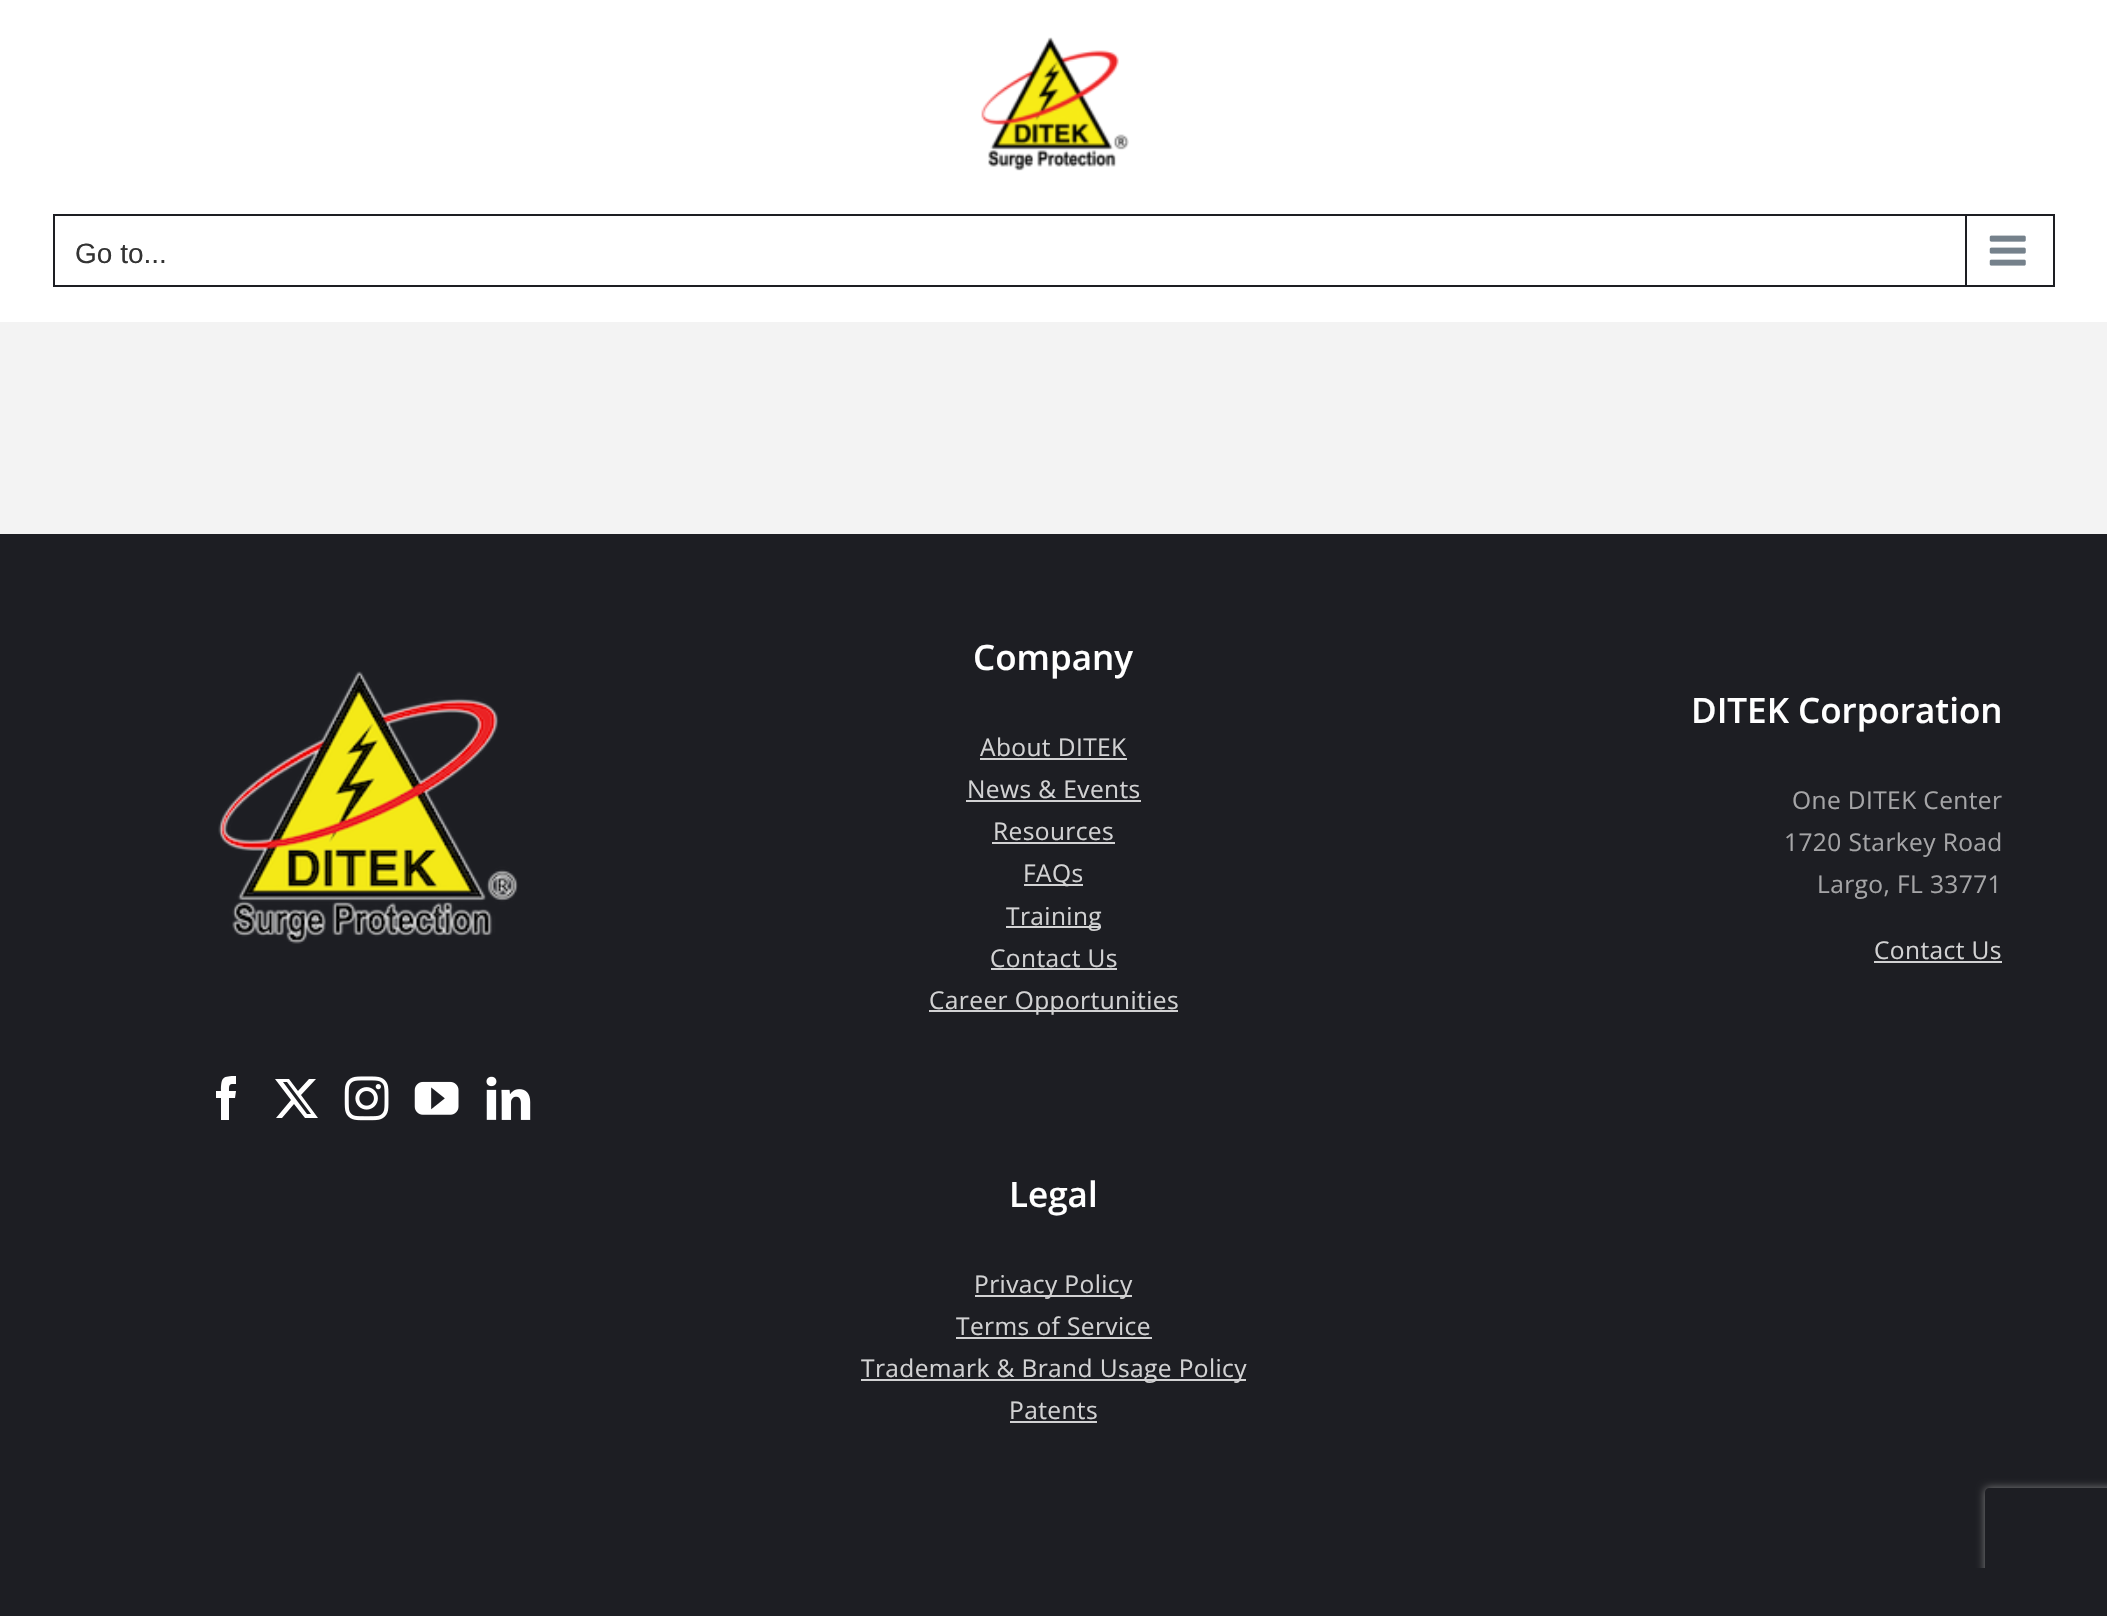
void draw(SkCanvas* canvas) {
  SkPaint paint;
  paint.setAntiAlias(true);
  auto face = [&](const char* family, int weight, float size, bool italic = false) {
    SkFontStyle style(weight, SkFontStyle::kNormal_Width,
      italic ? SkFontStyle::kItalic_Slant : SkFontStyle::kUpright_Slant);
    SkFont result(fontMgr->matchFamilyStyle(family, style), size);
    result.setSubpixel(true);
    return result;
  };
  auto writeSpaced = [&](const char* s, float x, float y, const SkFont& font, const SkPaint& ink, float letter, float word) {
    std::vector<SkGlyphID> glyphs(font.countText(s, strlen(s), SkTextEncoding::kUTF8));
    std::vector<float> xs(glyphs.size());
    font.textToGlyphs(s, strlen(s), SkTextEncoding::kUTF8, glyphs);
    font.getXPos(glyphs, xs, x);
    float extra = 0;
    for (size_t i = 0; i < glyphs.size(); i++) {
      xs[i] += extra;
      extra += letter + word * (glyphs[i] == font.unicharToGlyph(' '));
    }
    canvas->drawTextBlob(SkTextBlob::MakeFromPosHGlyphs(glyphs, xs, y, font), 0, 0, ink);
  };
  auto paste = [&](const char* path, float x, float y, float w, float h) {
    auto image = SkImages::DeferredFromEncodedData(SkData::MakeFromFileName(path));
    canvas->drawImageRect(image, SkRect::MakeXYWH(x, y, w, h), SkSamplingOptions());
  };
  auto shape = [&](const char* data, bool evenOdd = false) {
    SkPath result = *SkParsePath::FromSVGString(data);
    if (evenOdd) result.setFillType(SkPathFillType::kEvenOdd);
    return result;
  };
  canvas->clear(0xfff3f3f3);
  paint.setColor(0xffffffff);
  canvas->drawRect(SkRect::MakeXYWH(0, 0, 2107, 322), paint);
  paste("img/1.png", 981, 37, 148, 134);
  paint.setStroke(true);
  paint.setStrokeWidth(2);
  paint.setColor(0xff1d1e23);
  canvas->drawRect(SkRect::MakeXYWH(54, 215, 2000, 71), paint);
  paint.setStroke(false);
  canvas->drawRect(SkRect::MakeXYWH(1965, 215, 2, 70), paint);
  paste("img/2.png", 1989, 235, 37, 31);
  canvas->drawRect(SkRect::MakeXYWH(0, 534, 2107, 1034), paint);
  paste("img/3.png", 218, 671, 300, 273);
  paint.setColor(0xffffffff);
  canvas->drawPath(shape("M229 1120H221V1098H216V1091H221C221 1077 223 1076 236 1076V1084C229 1084 229 1084 229 1091H236L235 1098H229Z"), paint);
  canvas->drawPath(shape("M309 1079H316L301 1095L318 1118H305L294 1104L282 1118H276L291 1100L275 1079H289L298 1091ZM307 1114H311L287 1082H283Z"), paint);
  paste("img/4.png", 344, 1076, 45, 45);
  paste("img/5.png", 414, 1081, 45, 34);
  paste("img/6.png", 486, 1076, 45, 44);
  {
    const struct { float x, y, w, h; SkColor color; } items[] = {
      {980, 758, 147, 2, 0xffd2d2d3},
      {966, 800, 175, 2, 0xffd2d2d3},
      {992, 842, 123, 2, 0xffd2d2d3},
      {1024, 884, 59, 2, 0xffd2d2d3},
      {1006, 926, 95, 2, 0xffd2d2d3},
      {991, 968, 126, 2, 0xffd2d2d3},
      {929, 1010, 249, 2, 0xffd2d2d3},
      {975, 1295, 157, 2, 0xffd2d2d3},
      {956, 1337, 196, 2, 0xffd2d2d3},
      {861, 1379, 385, 2, 0xffd2d2d3},
      {1010, 1421, 87, 2, 0xffd2d2d3},
      {1874, 961, 128, 2, 0xffd2d2d3},
    };
    for (auto [x, y, w, h, color] : items) {
      paint.setColor(color);
      canvas->drawRect(SkRect::MakeXYWH(x, y, w, h), paint);
    }
  }
  canvas->save();
  canvas->clipPath(shape("M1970 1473H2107V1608H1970ZM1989 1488H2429C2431 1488 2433 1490 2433 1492V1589C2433 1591 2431 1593 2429 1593H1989C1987 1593 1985 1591 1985 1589V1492C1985 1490 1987 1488 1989 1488Z", true), true);
  paint.setColor(0xff808080);
  paint.setMaskFilter(SkMaskFilter::MakeBlur(kNormal_SkBlurStyle, 4.5f));
  canvas->drawRoundRect(SkRect::MakeXYWH(1985, 1488, 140, 105), 4, 4, paint);
  paint.setMaskFilter(nullptr);
  canvas->restore();
  paint.setColor(0xff1d1e23);
  canvas->drawRect(SkRect::MakeXYWH(0, 1568, 2107, 48), paint);
  auto f0 = face("Liberation Sans", 400, 28);
  paint.setColor(0xff333333);
  canvas->drawString("Go to...", 75, 263, f0, paint);
  auto f1 = face("Open Sans", 600, 35);
  paint.setColor(0xffffffff);
  canvas->drawString("Company", 973, 670, f1, paint);
  auto f2 = face("Open Sans", 400, 24.5f);
  paint.setColor(0xffd2d2d3);
  {
    const struct { const char* s; float x, y; } items[] = {
      {"About DITEK", 980, 756},
      {"News & Events", 967, 798},
      {"Resources", 993, 840},
      {"FAQs", 1023, 882},
      {"Training", 1006, 925},
      {"Contact Us", 990, 967},
      {"Career Opportunities", 929, 1009},
    };
    for (auto [s, x, y] : items) {
      writeSpaced(s, x, y, f2, paint, 0.4f, 0);
    }
  }
  paint.setColor(0xffffffff);
  canvas->drawString("Legal", 1009, 1207, f1, paint);
  paint.setColor(0xffd2d2d3);
  {
    const struct { const char* s; float x, y; } items[] = {
      {"Privacy Policy", 974, 1293},
      {"Terms of Service", 956, 1335},
      {"Trademark & Brand Usage Policy", 861, 1377},
      {"Patents", 1009, 1419},
    };
    for (auto [s, x, y] : items) {
      writeSpaced(s, x, y, f2, paint, 0.4f, 0);
    }
  }
  paint.setColor(0xffffffff);
  canvas->drawString("DITEK Corporation", 1691, 723, f1, paint);
  paint.setColor(0xffa5a5a7);
  {
    const struct { const char* s; float x, y; } items[] = {
      {"One DITEK Center", 1792, 809},
      {"1720 Starkey Road", 1784, 851},
      {"Largo, FL 33771", 1817, 893},
    };
    for (auto [s, x, y] : items) {
      writeSpaced(s, x, y, f2, paint, 0.4f, 0);
    }
  }
  paint.setColor(0xffd2d2d3);
  writeSpaced("Contact Us", 1874, 959, f2, paint, 0.4f, 0);
}
